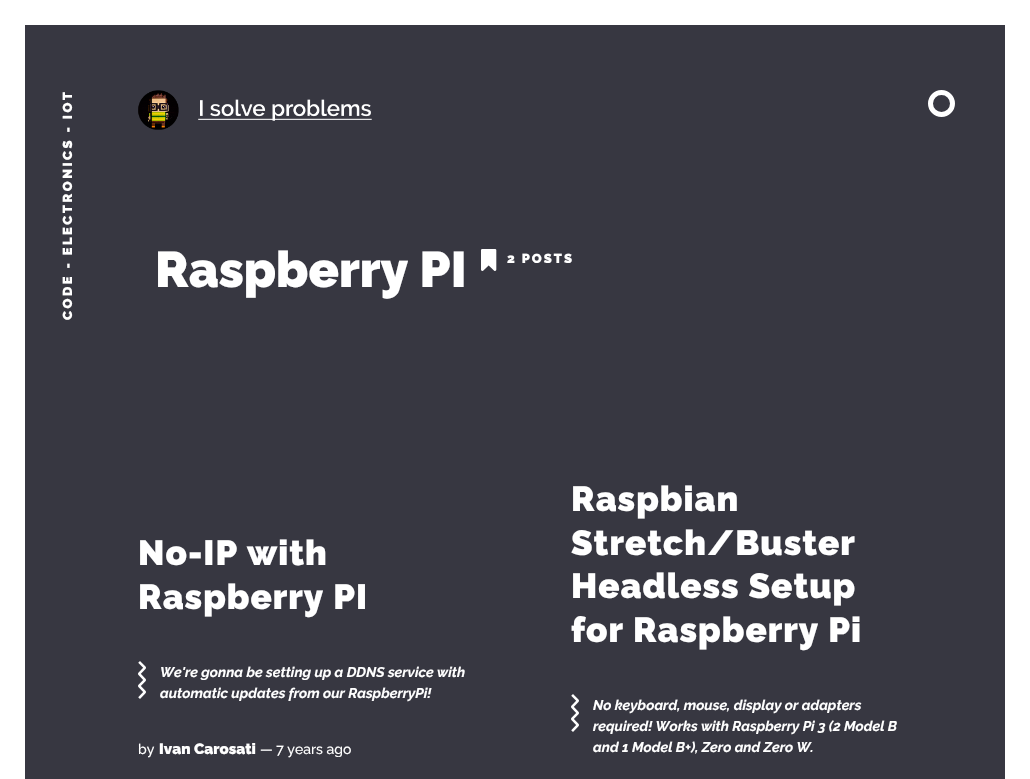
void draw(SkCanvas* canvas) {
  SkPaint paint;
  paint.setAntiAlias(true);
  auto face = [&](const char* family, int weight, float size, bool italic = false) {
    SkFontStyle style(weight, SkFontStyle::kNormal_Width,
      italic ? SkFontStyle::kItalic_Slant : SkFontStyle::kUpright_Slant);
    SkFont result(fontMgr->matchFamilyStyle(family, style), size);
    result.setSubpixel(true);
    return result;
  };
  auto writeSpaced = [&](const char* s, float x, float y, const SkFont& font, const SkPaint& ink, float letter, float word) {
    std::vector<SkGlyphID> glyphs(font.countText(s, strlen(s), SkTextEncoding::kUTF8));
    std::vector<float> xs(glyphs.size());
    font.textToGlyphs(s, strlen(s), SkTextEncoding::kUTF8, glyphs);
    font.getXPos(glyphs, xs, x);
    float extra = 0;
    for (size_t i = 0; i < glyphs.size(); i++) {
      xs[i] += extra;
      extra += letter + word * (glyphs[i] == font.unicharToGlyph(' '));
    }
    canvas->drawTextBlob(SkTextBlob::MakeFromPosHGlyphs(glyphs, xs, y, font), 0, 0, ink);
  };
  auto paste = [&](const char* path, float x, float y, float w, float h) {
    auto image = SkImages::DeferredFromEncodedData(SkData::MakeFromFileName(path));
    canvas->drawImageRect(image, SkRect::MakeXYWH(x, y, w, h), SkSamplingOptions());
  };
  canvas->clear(0xffffffff);
  paint.setColor(0xff373741);
  canvas->drawRect(SkRect::MakeXYWH(25, 25, 980, 754), paint);
  paste("img/1.png", 138, 90, 234, 40);
  paint.setStroke(true);
  paint.setStrokeWidth(5);
  paint.setColor(0xffffffff);
  canvas->drawCircle(941.5f, 103.5f, 11, paint);
  paste("img/2.png", 481, 249, 16, 22);
  paste("img/3.png", 138, 661, 8, 38);
  paste("img/3.png", 571, 694, 8, 38);
  auto f0 = face("Raleway", 900, 13);
  paint.setStroke(false);
  canvas->save();
  canvas->rotate(-90, 72, 320);
  writeSpaced("CODE - ELECTRONICS - IOT", 72, 320, f0, paint, 2.5f, 0);
  canvas->restore();
  auto f1 = face("Raleway", 900, 50);
  canvas->drawString("Raspberry PI", 155, 287, f1, paint);
  writeSpaced("2 POSTS", 507, 263, f0, paint, 2, 0);
  auto f2 = face("Raleway", 900, 35);
  writeSpaced("No-IP with", 138, 565, f2, paint, 1, 0);
  writeSpaced("Raspberry PI", 138, 609, f2, paint, 1, 0);
  auto f3 = face("Raleway", 700, 14, true);
  canvas->drawString("We're gonna be setting up a DDNS service with", 160, 677, f3, paint);
  canvas->drawString("automatic updates from our RaspberryPi!", 160, 698, f3, paint);
  auto f4 = face("Raleway", 500, 14);
  canvas->drawString("by", 138, 754, f4, paint);
  auto f5 = face("Raleway", 900, 15);
  canvas->drawString("Ivan Carosati", 159, 754, f5, paint);
  canvas->drawString("— 7 years ago", 260, 754, f4, paint);
  {
    const struct { const char* s; float x, y; } items[] = {
      {"Raspbian", 571, 511},
      {"Stretch/Buster", 571, 555},
      {"Headless Setup", 571, 598},
      {"for Raspberry Pi", 571, 642},
    };
    for (auto [s, x, y] : items) {
      writeSpaced(s, x, y, f2, paint, 1, 0);
    }
  }
  {
    const struct { const char* s; float x, y; } items[] = {
      {"No keyboard, mouse, display or adapters", 593, 710},
      {"required! Works with Raspberry Pi 3 (2 Model B", 593, 731},
      {"and 1 Model B+), Zero and Zero W.", 593, 752},
    };
    for (auto [s, x, y] : items) {
      canvas->drawString(s, x, y, f3, paint);
    }
  }
}
